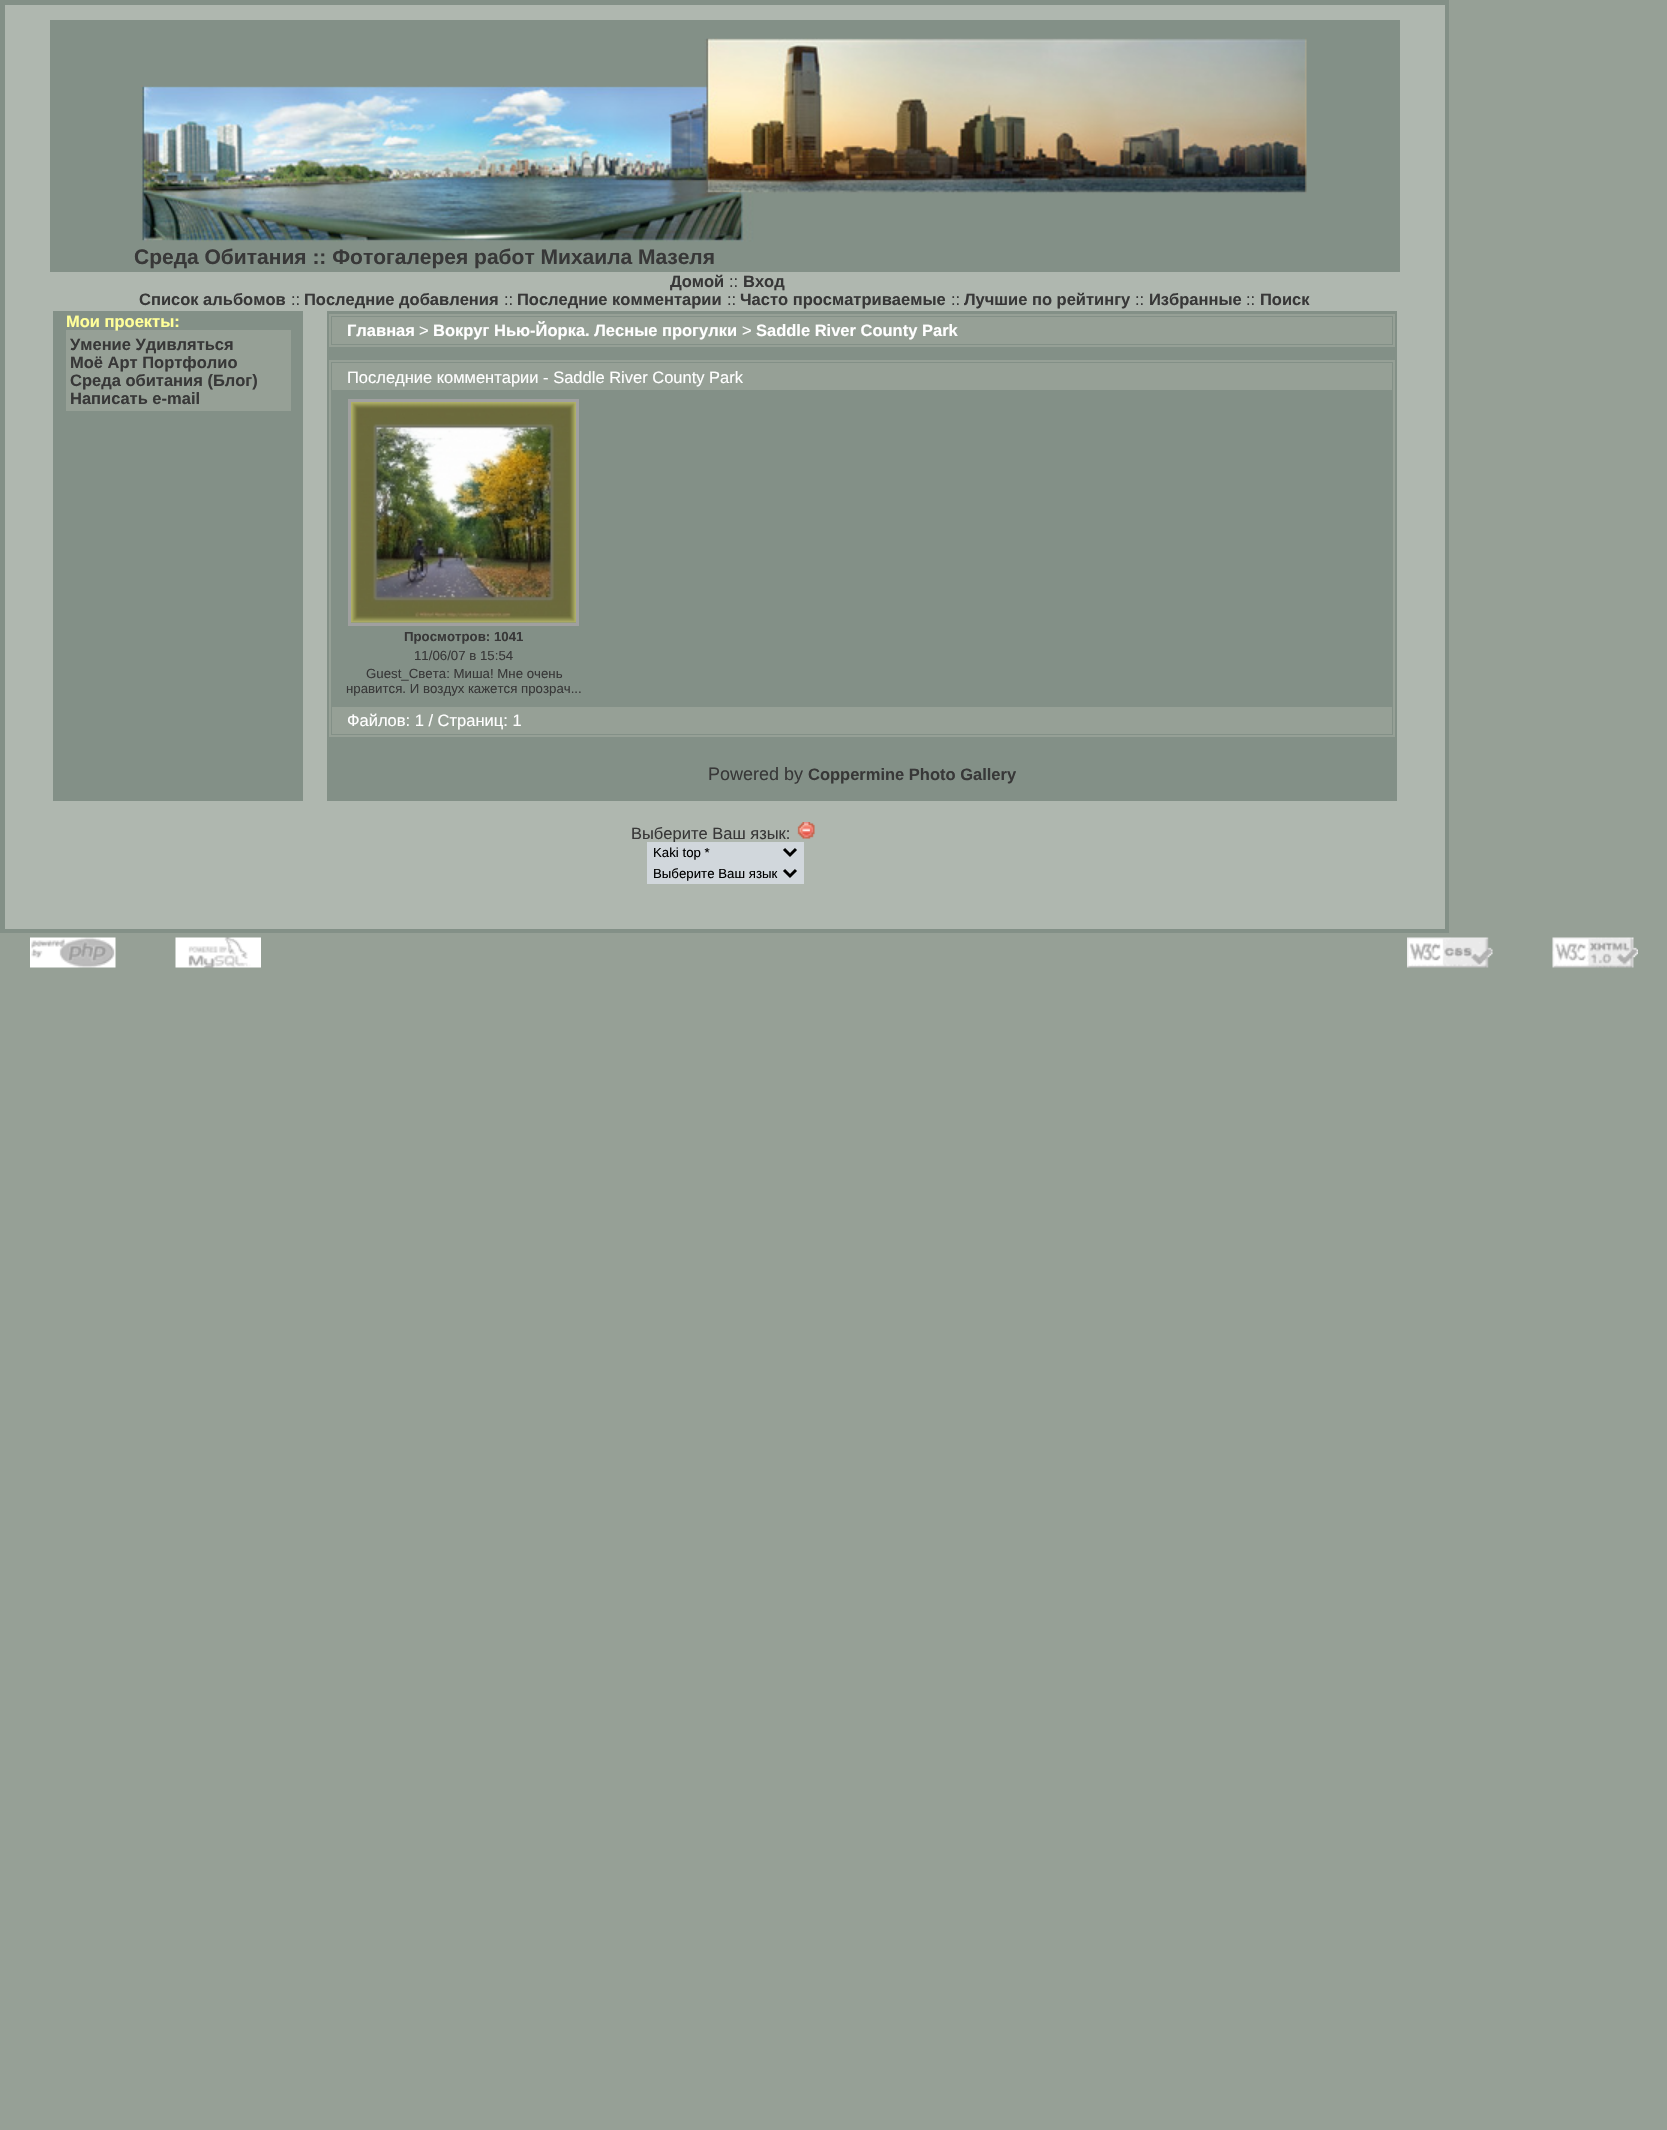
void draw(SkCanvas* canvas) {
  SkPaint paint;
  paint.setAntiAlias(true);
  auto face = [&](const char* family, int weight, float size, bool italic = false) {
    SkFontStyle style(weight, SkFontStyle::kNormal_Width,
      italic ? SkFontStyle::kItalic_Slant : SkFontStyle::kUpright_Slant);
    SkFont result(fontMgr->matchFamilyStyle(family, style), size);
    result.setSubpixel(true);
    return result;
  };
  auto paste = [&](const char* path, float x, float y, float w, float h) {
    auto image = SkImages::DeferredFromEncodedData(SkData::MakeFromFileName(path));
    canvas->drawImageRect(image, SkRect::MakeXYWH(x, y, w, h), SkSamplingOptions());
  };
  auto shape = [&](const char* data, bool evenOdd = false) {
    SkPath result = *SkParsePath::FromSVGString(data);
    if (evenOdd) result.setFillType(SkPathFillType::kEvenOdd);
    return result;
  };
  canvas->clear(0xff96a096);
  {
    const struct { float x, y, w, h; SkColor color; } items[] = {
      {0, 0, 1449, 933, 0xff839087},
      {5, 5, 1440, 924, 0xffafb7af},
      {50, 20, 1350, 252, 0xff839087},
    };
    for (auto [x, y, w, h, color] : items) {
      paint.setColor(color);
      canvas->drawRect(SkRect::MakeXYWH(x, y, w, h), paint);
    }
  }
  paste("img/1.png", 141, 38, 1166, 204);
  {
    const struct { float x, y, w, h; SkColor color; } items[] = {
      {53, 311, 250, 490, 0xff839087},
      {66, 330, 225, 81, 0xff96a096},
      {327, 311, 1070, 490, 0xff839087},
    };
    for (auto [x, y, w, h, color] : items) {
      paint.setColor(color);
      canvas->drawRect(SkRect::MakeXYWH(x, y, w, h), paint);
    }
  }
  paint.setStroke(true);
  paint.setStrokeWidth(2);
  paint.setColor(0xff96a096);
  canvas->drawRect(SkRect::MakeXYWH(330, 315, 1064, 31), paint);
  paint.setStroke(false);
  canvas->drawRect(SkRect::MakeXYWH(332, 317, 1060, 27), paint);
  paint.setStroke(true);
  canvas->drawRect(SkRect::MakeXYWH(330, 361, 1064, 375), paint);
  paint.setStroke(false);
  canvas->drawRect(SkRect::MakeXYWH(332, 363, 1060, 27), paint);
  paint.setStroke(true);
  paint.setStrokeWidth(3);
  paint.setColor(0xffa0a0a0);
  canvas->drawRect(SkRect::MakeXYWH(349.5f, 400.5f, 228, 224), paint);
  paste("img/2.png", 351, 402, 225, 221);
  paint.setStroke(false);
  paint.setColor(0xff96a096);
  canvas->drawRect(SkRect::MakeXYWH(332, 707, 1060, 27), paint);
  paste("img/3.png", 797, 822, 18, 17);
  paste("img/4.png", 30, 937, 86, 31);
  paste("img/5.png", 175, 937, 86, 31);
  paste("img/6.png", 1407, 937, 86, 31);
  paste("img/7.png", 1552, 937, 86, 31);
  auto f0 = face("Liberation Sans", 700, 21);
  paint.setColor(0xff383838);
  canvas->drawString("Среда Обитания :: Фотогалерея работ Михаила Мазеля", 134, 264, f0, paint);
  auto f1 = face("Liberation Sans", 700, 16.5f);
  canvas->drawString("Домой", 670, 287, f1, paint);
  auto f2 = face("Liberation Sans", 400, 16.5f);
  canvas->drawString("::", 729, 287, f2, paint);
  canvas->drawString("Вход", 743, 287, f1, paint);
  canvas->drawString("Список альбомов", 139, 305, f1, paint);
  canvas->drawString("::", 291, 305, f2, paint);
  canvas->drawString("Последние добавления", 304, 305, f1, paint);
  canvas->drawString("::", 504, 305, f2, paint);
  canvas->drawString("Последние комментарии", 517, 305, f1, paint);
  canvas->drawString("::", 727, 305, f2, paint);
  canvas->drawString("Часто просматриваемые", 740, 305, f1, paint);
  canvas->drawString("::", 951, 305, f2, paint);
  canvas->drawString("Лучшие по рейтингу", 964, 305, f1, paint);
  canvas->drawString("::", 1135, 305, f2, paint);
  canvas->drawString("Избранные", 1149, 305, f1, paint);
  canvas->drawString("::", 1246, 305, f2, paint);
  canvas->drawString("Поиск", 1260, 305, f1, paint);
  paint.setColor(0xffffff99);
  canvas->drawString("Мои проекты:", 66, 327, f1, paint);
  paint.setColor(0xff383838);
  {
    const struct { const char* s; float x, y; } items[] = {
      {"Умение Удивляться", 70, 350},
      {"Моё Арт Портфолио", 70, 368},
      {"Среда обитания (Блог)", 70, 386},
      {"Написать e-mail", 70, 404},
    };
    for (auto [s, x, y] : items) {
      canvas->drawString(s, x, y, f1, paint);
    }
  }
  paint.setColor(0xffffffff);
  canvas->drawString("Главная", 347, 336, f1, paint);
  canvas->drawString(">", 419, 336, f2, paint);
  canvas->drawString("Вокруг Нью-Йорка. Лесные прогулки", 433, 336, f1, paint);
  canvas->drawString(">", 742, 336, f2, paint);
  canvas->drawString("Saddle River County Park", 756, 336, f1, paint);
  canvas->drawString("Последние комментарии - Saddle River County Park", 347, 383, f2, paint);
  auto f3 = face("Liberation Sans", 700, 13.25f);
  paint.setColor(0xff383838);
  canvas->drawString("Просмотров: 1041", 404, 641, f3, paint);
  auto f4 = face("Liberation Sans", 400, 13.25f);
  {
    const struct { const char* s; float x, y; } items[] = {
      {"11/06/07 в 15:54", 414, 660},
      {"Guest_Света: Миша! Мне очень", 366, 678},
      {"нравится. И воздух кажется прозрач...", 346, 693},
    };
    for (auto [s, x, y] : items) {
      canvas->drawString(s, x, y, f4, paint);
    }
  }
  paint.setColor(0xffffffff);
  canvas->drawString("Файлов: 1 / Страниц: 1", 347, 726, f2, paint);
  auto f5 = face("Liberation Sans", 400, 18);
  paint.setColor(0xff383838);
  canvas->drawString("Powered by", 708, 780, f5, paint);
  canvas->drawString("Coppermine Photo Gallery", 808, 780, f1, paint);
  canvas->drawString("Выберите Ваш язык:", 631, 839, f2, paint);
  paint.setColor(0xffd1d7dc);
  canvas->drawRect(SkRect::MakeXYWH(647, 842, 157, 42), paint);
  paint.setStroke(true);
  paint.setColor(0xff000000);
  canvas->drawPath(shape("M784 849L790 855L796 849"), paint);
  paint.setStroke(false);
  canvas->drawString("Kaki top *", 653, 857, f4, paint);
  paint.setStroke(true);
  canvas->drawPath(shape("M784 870L790 876L796 870"), paint);
  paint.setStroke(false);
  canvas->drawString("Выберите Ваш язык", 653, 878, f4, paint);
}
